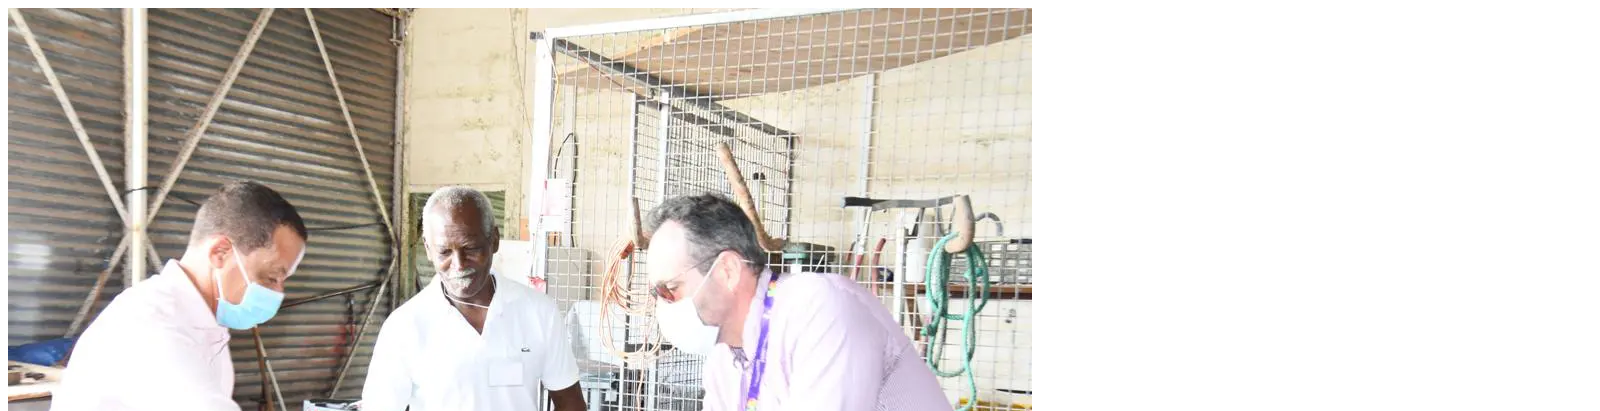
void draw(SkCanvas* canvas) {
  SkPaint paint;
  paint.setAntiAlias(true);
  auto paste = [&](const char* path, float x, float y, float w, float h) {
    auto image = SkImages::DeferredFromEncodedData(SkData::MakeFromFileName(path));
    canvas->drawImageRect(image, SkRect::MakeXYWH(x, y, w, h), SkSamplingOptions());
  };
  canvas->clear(0xffffffff);
  paste("img/1.png", 8, 8, 1024, 403);
}
